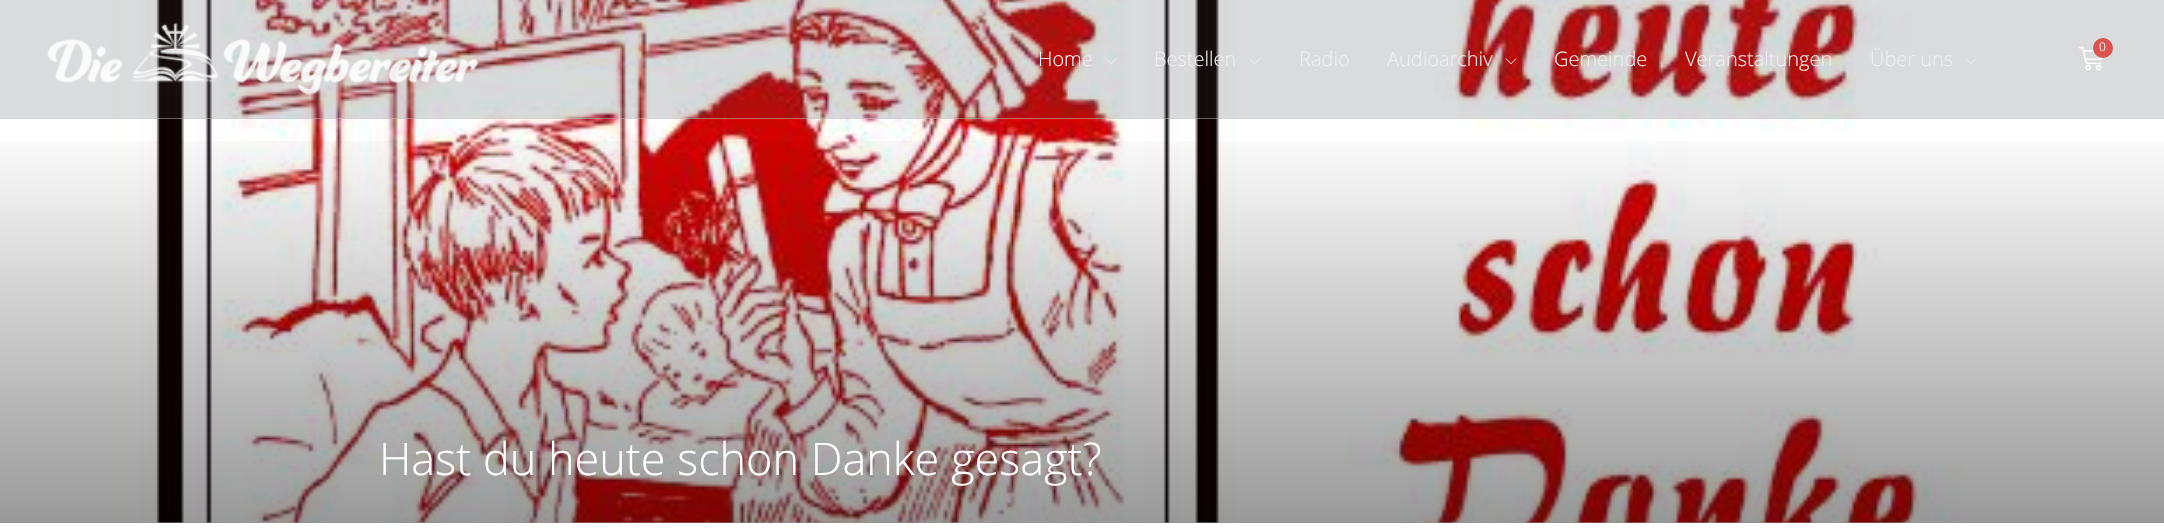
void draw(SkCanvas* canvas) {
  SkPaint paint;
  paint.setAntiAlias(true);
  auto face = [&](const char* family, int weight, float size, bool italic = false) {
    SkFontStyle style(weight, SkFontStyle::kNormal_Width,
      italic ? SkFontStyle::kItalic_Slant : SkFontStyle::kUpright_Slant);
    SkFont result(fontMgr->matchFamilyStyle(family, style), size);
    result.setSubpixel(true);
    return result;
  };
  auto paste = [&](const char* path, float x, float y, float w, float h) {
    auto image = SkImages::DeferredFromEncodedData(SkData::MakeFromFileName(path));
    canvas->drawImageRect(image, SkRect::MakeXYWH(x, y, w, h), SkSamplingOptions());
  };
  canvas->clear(0xffffffff);
  paint.setColor(0xffeaeaea);
  canvas->drawRect(SkRect::MakeXYWH(0, 522, 2164, 1), paint);
  paste("img/1.png", 0, 0, 2164, 523);
  paint.setColor(0x2e2e363d);
  canvas->drawRect(SkRect::MakeXYWH(0, 0, 2164, 119), paint);
  paint.setColor(0x70cecece);
  canvas->drawRect(SkRect::MakeXYWH(0, 118, 2164, 1), paint);
  paste("img/2.png", 47, 22, 432, 74);
  paste("img/3.png", 2079, 47, 24, 24);
  paint.setColor(0xffd9534f);
  canvas->drawCircle(2103, 48, 10, paint);
  paste("img/4.png", 1105, 58, 12, 6);
  paste("img/5.png", 1249, 58, 11, 6);
  paste("img/6.png", 1505, 58, 12, 7);
  paste("img/7.png", 1965, 58, 12, 6);
  {
    const SkColor colors[] = {0x00000000, 0x66000000};
    const float stops[] = {0, 1};
    const SkPoint ends[] = {{1083, 119}, {1083, 523}};
    paint.setShader(SkGradientShader::MakeLinear(ends, colors, stops, 2, SkTileMode::kClamp));
    paint.setAlpha(255);
  }
  canvas->drawRect(SkRect::MakeXYWH(0, 141, 2164, 382), paint);
  auto f0 = face("Open Sans", 300, 12);
  paint.setShader(nullptr);
  paint.setColor(0xffffffff);
  canvas->drawString("0", 2099, 51, f0, paint);
  auto f1 = face("Open Sans", 300, 20);
  paint.setColor(0xffefefef);
  {
    const struct { const char* s; float x, y; } items[] = {
      {"Home", 1038, 66},
      {"Bestellen", 1154, 66},
      {"Radio", 1299, 66},
      {"Audioarchiv", 1387, 66},
      {"Gemeinde", 1554, 66},
      {"Veranstaltungen", 1685, 66},
      {"Über uns", 1870, 66},
    };
    for (auto [s, x, y] : items) {
      canvas->drawString(s, x, y, f1, paint);
    }
  }
  auto f2 = face("Open Sans", 300, 45);
  paint.setColor(0xffffffff);
  canvas->drawString("Hast du heute schon Danke gesagt?", 379, 475, f2, paint);
}
